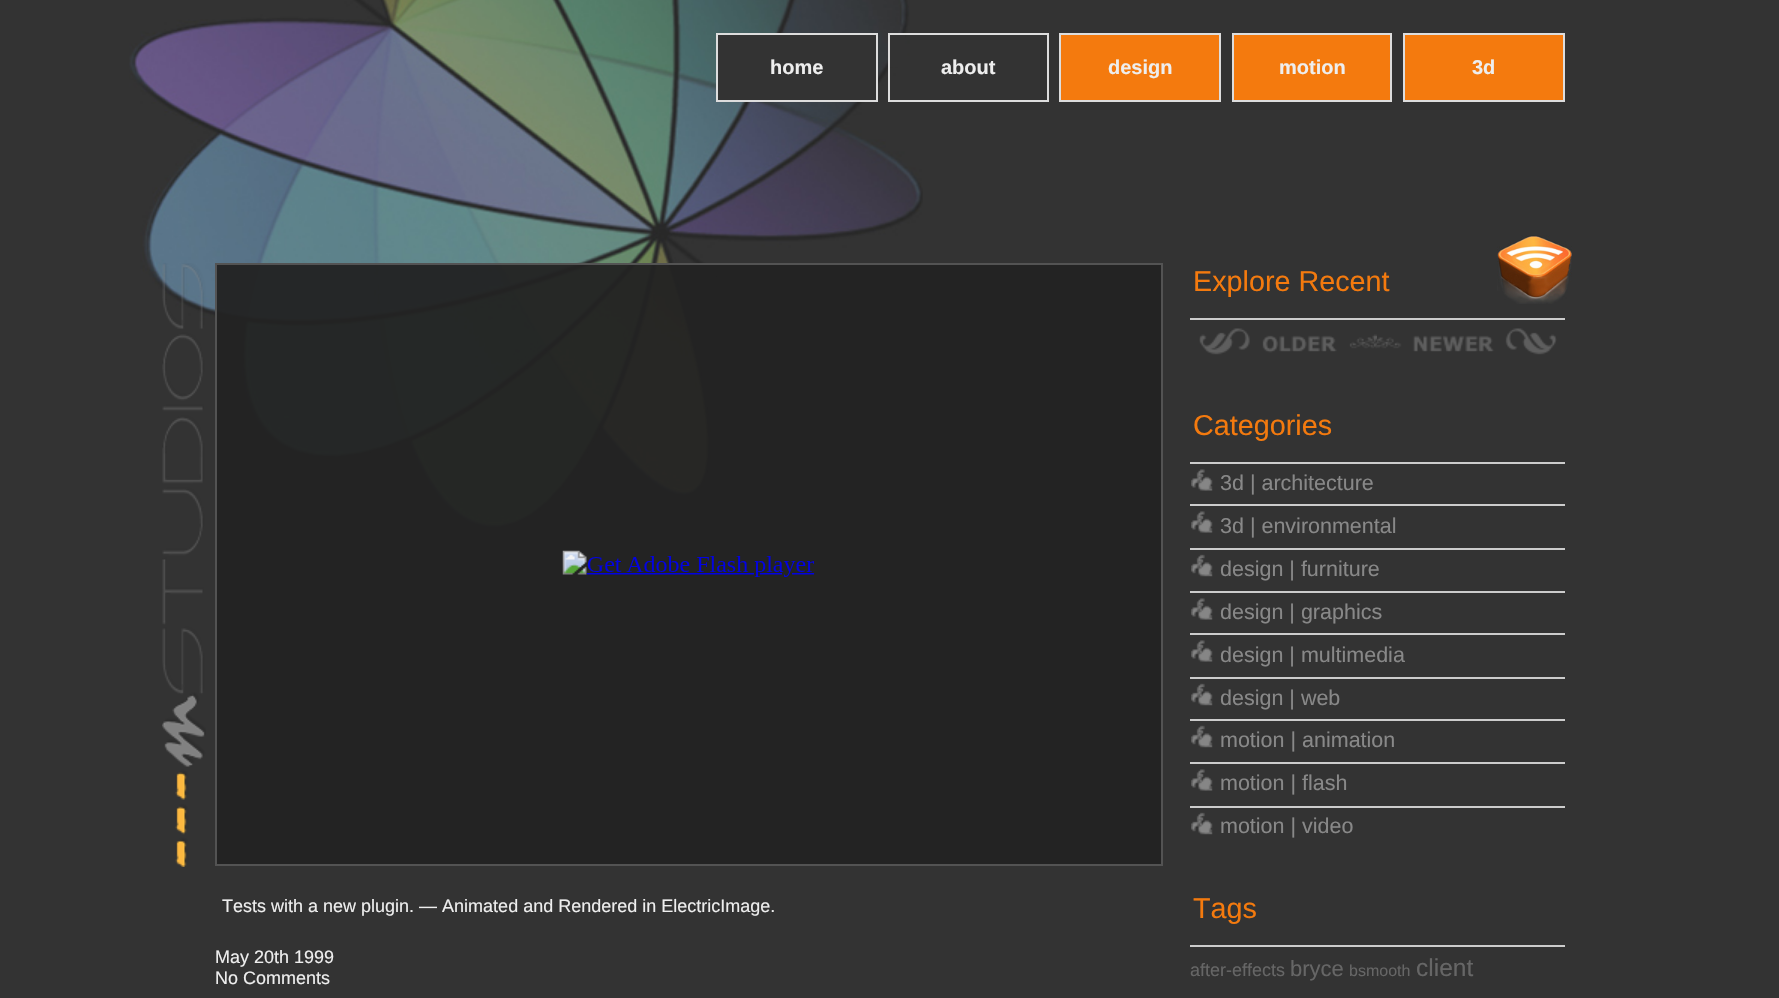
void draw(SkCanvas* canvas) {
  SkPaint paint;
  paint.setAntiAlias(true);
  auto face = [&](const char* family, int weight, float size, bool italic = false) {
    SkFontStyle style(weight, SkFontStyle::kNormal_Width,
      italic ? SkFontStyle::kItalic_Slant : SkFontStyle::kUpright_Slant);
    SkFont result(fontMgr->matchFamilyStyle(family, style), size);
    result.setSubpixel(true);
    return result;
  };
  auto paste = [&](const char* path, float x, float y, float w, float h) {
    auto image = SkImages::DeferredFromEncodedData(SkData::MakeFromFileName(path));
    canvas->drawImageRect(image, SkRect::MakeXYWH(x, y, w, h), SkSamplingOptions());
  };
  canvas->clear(0xff333333);
  paste("img/1.png", 129, 0, 794, 530);
  paint.setColor(0xff333333);
  canvas->drawRect(SkRect::MakeXYWH(717, 34, 160, 67), paint);
  paint.setStroke(true);
  paint.setStrokeWidth(2);
  paint.setColor(0xffdddddd);
  canvas->drawRect(SkRect::MakeXYWH(717, 34, 160, 67), paint);
  paint.setStroke(false);
  paint.setColor(0xff333333);
  canvas->drawRect(SkRect::MakeXYWH(890, 35, 15, 32), paint);
  paint.setStroke(true);
  paint.setColor(0xffdddddd);
  canvas->drawRect(SkRect::MakeXYWH(889, 34, 159, 67), paint);
  paint.setStroke(false);
  paint.setColor(0xfff47a0e);
  canvas->drawRect(SkRect::MakeXYWH(1060, 34, 160, 67), paint);
  paint.setStroke(true);
  paint.setColor(0xffdddddd);
  canvas->drawRect(SkRect::MakeXYWH(1060, 34, 160, 67), paint);
  paint.setStroke(false);
  paint.setColor(0xfff47a0e);
  canvas->drawRect(SkRect::MakeXYWH(1233, 34, 158, 67), paint);
  paint.setStroke(true);
  paint.setColor(0xffdddddd);
  canvas->drawRect(SkRect::MakeXYWH(1233, 34, 158, 67), paint);
  paint.setStroke(false);
  paint.setColor(0xfff47a0e);
  canvas->drawRect(SkRect::MakeXYWH(1404, 34, 160, 67), paint);
  paint.setStroke(true);
  paint.setColor(0xffdddddd);
  canvas->drawRect(SkRect::MakeXYWH(1404, 34, 160, 67), paint);
  paste("img/2.png", 162, 263, 44, 604);
  paste("img/3.png", 1497, 235, 75, 69);
  paint.setStroke(false);
  paint.setColor(0xf2222222);
  canvas->drawRect(SkRect::MakeXYWH(215, 263, 948, 603), paint);
  paint.setStroke(true);
  paint.setColor(0xf2555555);
  canvas->drawRect(SkRect::MakeXYWH(216, 264, 946, 601), paint);
  paste("img/4.png", 562, 550, 253, 27);
  paint.setStroke(false);
  paint.setColor(0xffcccccc);
  canvas->drawRect(SkRect::MakeXYWH(1190, 318, 375, 2), paint);
  paste("img/5.png", 1199, 328, 178, 27);
  paste("img/6.png", 1377, 328, 180, 27);
  canvas->drawRect(SkRect::MakeXYWH(1190, 462, 375, 2), paint);
  paste("img/7.png", 1191, 469, 22, 22);
  canvas->drawRect(SkRect::MakeXYWH(1190, 504, 375, 2), paint);
  paste("img/7.png", 1191, 511, 22, 22);
  canvas->drawRect(SkRect::MakeXYWH(1190, 548, 375, 2), paint);
  paste("img/8.png", 1191, 554, 22, 23);
  canvas->drawRect(SkRect::MakeXYWH(1190, 591, 375, 2), paint);
  paste("img/7.png", 1191, 598, 22, 22);
  canvas->drawRect(SkRect::MakeXYWH(1190, 633, 375, 2), paint);
  paste("img/7.png", 1191, 640, 22, 22);
  canvas->drawRect(SkRect::MakeXYWH(1190, 677, 375, 2), paint);
  paste("img/8.png", 1191, 683, 22, 23);
  canvas->drawRect(SkRect::MakeXYWH(1190, 719, 375, 2), paint);
  paste("img/8.png", 1191, 725, 22, 23);
  canvas->drawRect(SkRect::MakeXYWH(1190, 762, 375, 2), paint);
  paste("img/7.png", 1191, 769, 22, 22);
  canvas->drawRect(SkRect::MakeXYWH(1190, 806, 375, 2), paint);
  paste("img/8.png", 1191, 812, 22, 23);
  canvas->drawRect(SkRect::MakeXYWH(1190, 945, 375, 2), paint);
  auto f0 = face("Liberation Sans", 700, 20);
  paint.setColor(0xffeeeeee);
  {
    const struct { const char* s; float x, y; } items[] = {
      {"home", 770, 74},
      {"about", 941, 74},
      {"design", 1108, 74},
      {"motion", 1279, 74},
      {"3d", 1472, 74},
    };
    for (auto [s, x, y] : items) {
      canvas->drawString(s, x, y, f0, paint);
    }
  }
  auto f1 = face("Liberation Sans", 400, 18);
  {
    const struct { const char* s; float x, y; } items[] = {
      {"Tests with a new plugin. — Animated and Rendered in ElectricImage.", 222, 912},
      {"May 20th 1999", 215, 963},
      {"No Comments", 215, 984},
    };
    for (auto [s, x, y] : items) {
      canvas->drawString(s, x, y, f1, paint);
    }
  }
  auto f2 = face("Liberation Sans", 400, 28.75f);
  paint.setColor(0xfff47a0e);
  canvas->drawString("Explore Recent", 1193, 291, f2, paint);
  canvas->drawString("Categories", 1193, 435, f2, paint);
  auto f3 = face("Liberation Sans", 400, 21.5f);
  paint.setColor(0xff888888);
  {
    const struct { const char* s; float x, y; } items[] = {
      {"3d | architecture", 1220, 490},
      {"3d | environmental", 1220, 533},
      {"design | furniture", 1220, 576},
      {"design | graphics", 1220, 619},
      {"design | multimedia", 1220, 662},
      {"design | web", 1220, 705},
      {"motion | animation", 1220, 747},
      {"motion | flash", 1220, 790},
      {"motion | video", 1220, 833},
    };
    for (auto [s, x, y] : items) {
      canvas->drawString(s, x, y, f3, paint);
    }
  }
  paint.setColor(0xfff47a0e);
  canvas->drawString("Tags", 1193, 918, f2, paint);
  paint.setColor(0xff666666);
  canvas->drawString("after-effects", 1190, 976, f1, paint);
  auto f4 = face("Liberation Sans", 400, 22);
  canvas->drawString("bryce", 1290, 976, f4, paint);
  auto f5 = face("Liberation Sans", 400, 16);
  canvas->drawString("bsmooth", 1349, 976, f5, paint);
  auto f6 = face("Liberation Sans", 400, 24.5f);
  canvas->drawString("client", 1416, 976, f6, paint);
}
